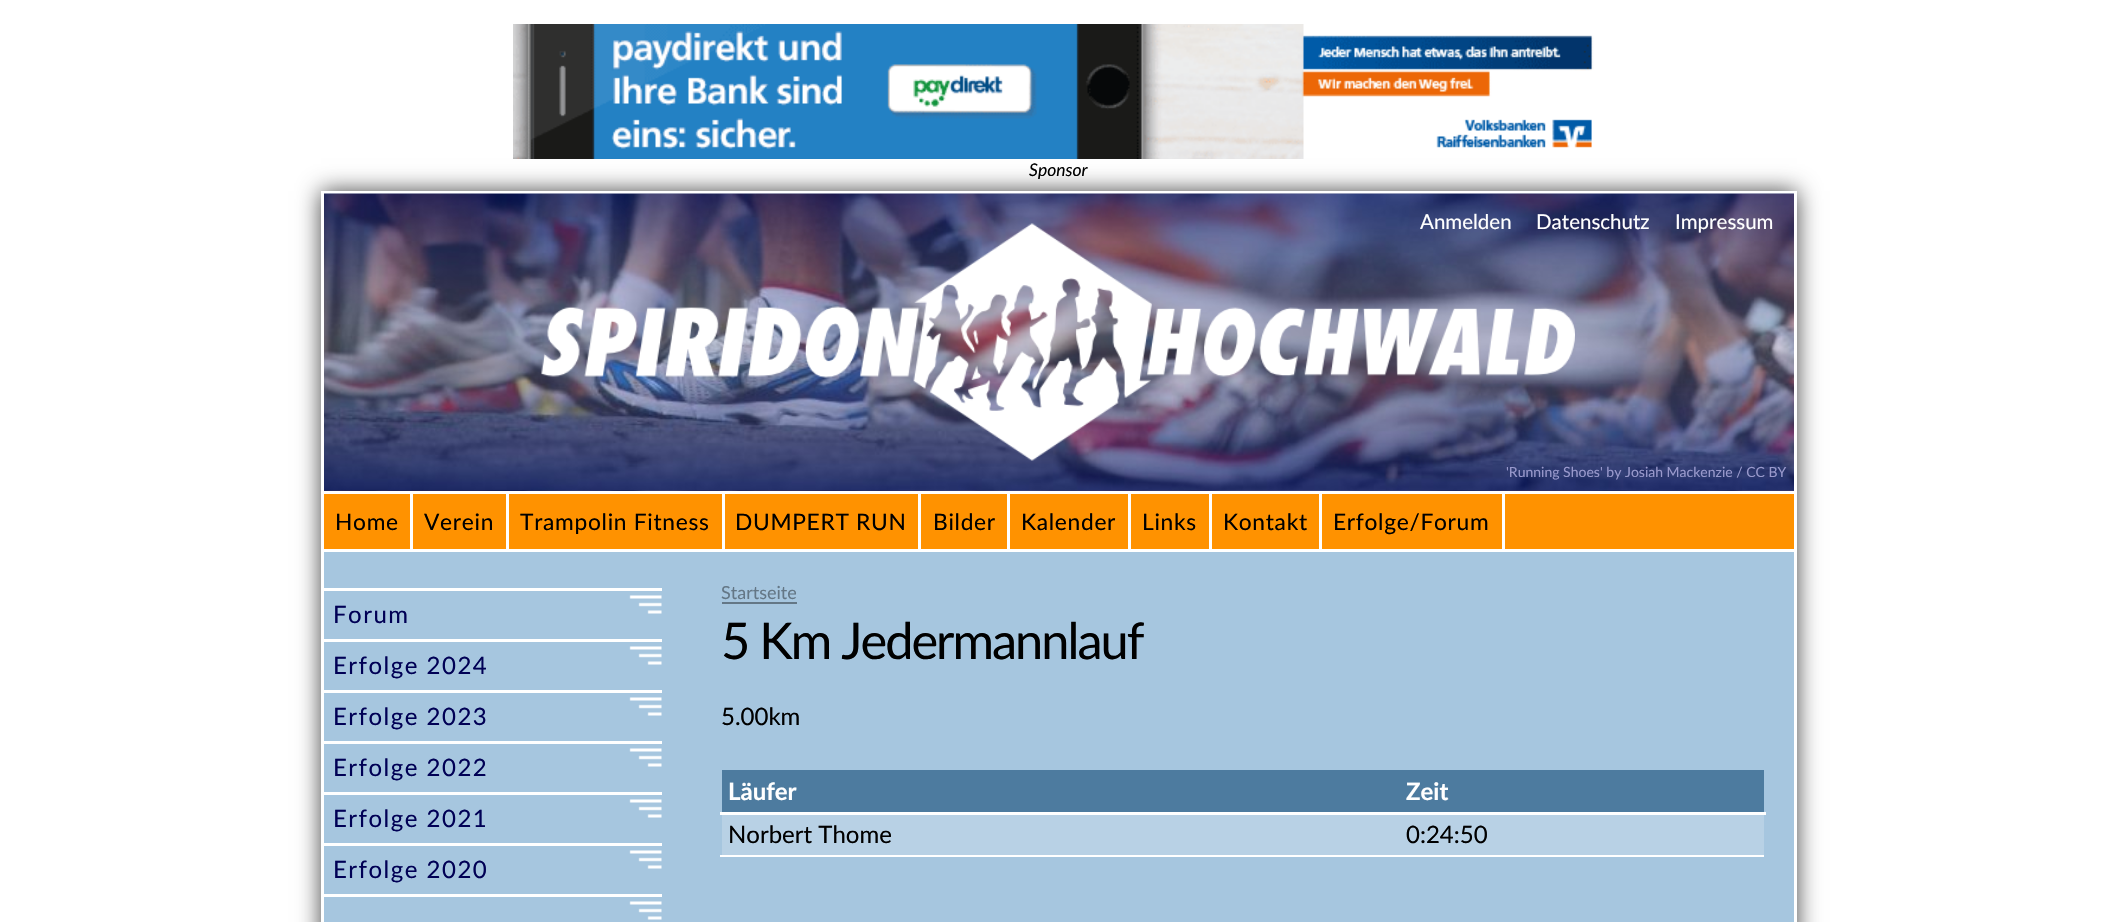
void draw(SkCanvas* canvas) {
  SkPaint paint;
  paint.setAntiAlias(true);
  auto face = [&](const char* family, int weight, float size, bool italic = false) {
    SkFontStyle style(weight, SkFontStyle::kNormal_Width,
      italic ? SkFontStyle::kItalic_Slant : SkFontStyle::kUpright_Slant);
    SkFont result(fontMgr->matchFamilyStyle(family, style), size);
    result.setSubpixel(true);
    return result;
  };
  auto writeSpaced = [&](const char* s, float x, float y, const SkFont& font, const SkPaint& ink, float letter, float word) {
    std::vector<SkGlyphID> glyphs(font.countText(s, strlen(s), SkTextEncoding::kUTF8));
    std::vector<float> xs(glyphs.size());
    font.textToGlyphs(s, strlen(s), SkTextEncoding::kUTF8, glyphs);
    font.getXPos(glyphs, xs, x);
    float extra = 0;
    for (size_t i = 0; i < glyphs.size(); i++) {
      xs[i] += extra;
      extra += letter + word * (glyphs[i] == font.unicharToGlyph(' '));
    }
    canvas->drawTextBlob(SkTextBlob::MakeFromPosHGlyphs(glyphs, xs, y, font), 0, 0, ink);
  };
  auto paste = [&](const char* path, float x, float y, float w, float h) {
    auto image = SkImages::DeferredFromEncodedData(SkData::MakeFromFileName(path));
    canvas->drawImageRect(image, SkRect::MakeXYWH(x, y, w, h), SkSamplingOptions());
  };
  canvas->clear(0xffffffff);
  paste("img/1.png", 513, 24, 1081, 135);
  paint.setColor(0xff444444);
  paint.setMaskFilter(SkMaskFilter::MakeBlur(kNormal_SkBlurStyle, 11));
  canvas->drawRect(SkRect::MakeXYWH(321, 191, 1476, 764), paint);
  paint.setMaskFilter(nullptr);
  paint.setColor(0xffa6c6df);
  canvas->drawRect(SkRect::MakeXYWH(324, 552, 1470, 370), paint);
  paint.setStroke(true);
  paint.setStrokeWidth(3);
  paint.setColor(0xffffffff);
  canvas->drawRect(SkRect::MakeXYWH(322.5f, 192.5f, 1473, 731), paint);
  paste("img/2.png", 324, 193, 1470, 298);
  paint.setStroke(false);
  canvas->drawRect(SkRect::MakeXYWH(324, 491, 1470, 3), paint);
  paste("img/3.png", 541, 223, 1034, 238);
  {
    const struct { float x, y, w, h; SkColor color; } items[] = {
      {324, 494, 1470, 55, 0xffff9200},
      {324, 549, 1470, 3, 0xffffffff},
      {410, 494, 3, 55, 0xffffffff},
      {506, 494, 3, 55, 0xffffffff},
      {722, 494, 3, 55, 0xffffffff},
      {918, 494, 3, 55, 0xffffffff},
      {1007, 494, 3, 55, 0xffffffff},
      {1128, 494, 3, 55, 0xffffffff},
      {1209, 494, 3, 55, 0xffffffff},
      {1319, 494, 3, 55, 0xffffffff},
      {1502, 494, 3, 55, 0xffffffff},
      {324, 588, 338, 3, 0xffffffff},
      {324, 639, 338, 3, 0xffffffff},
    };
    for (auto [x, y, w, h, color] : items) {
      paint.setColor(color);
      canvas->drawRect(SkRect::MakeXYWH(x, y, w, h), paint);
    }
  }
  paste("img/4.png", 629, 595, 33, 19);
  canvas->drawRect(SkRect::MakeXYWH(324, 690, 338, 3), paint);
  paste("img/4.png", 629, 646, 33, 19);
  canvas->drawRect(SkRect::MakeXYWH(324, 741, 338, 3), paint);
  paste("img/4.png", 629, 697, 33, 19);
  canvas->drawRect(SkRect::MakeXYWH(324, 792, 338, 3), paint);
  paste("img/4.png", 629, 748, 33, 19);
  canvas->drawRect(SkRect::MakeXYWH(324, 843, 338, 3), paint);
  paste("img/4.png", 629, 799, 33, 19);
  canvas->drawRect(SkRect::MakeXYWH(324, 894, 338, 3), paint);
  paste("img/4.png", 629, 850, 33, 19);
  paste("img/4.png", 629, 901, 33, 19);
  {
    const struct { float x, y, w, h; SkColor color; } items[] = {
      {722, 602, 75, 2, 0xff647786},
      {722, 770, 1042, 42, 0xff4d7b9f},
      {720, 812, 1046, 3, 0xffffffff},
      {722, 815, 1042, 40, 0xffb8d1e5},
      {720, 855, 1044, 2, 0xffffffff},
    };
    for (auto [x, y, w, h, color] : items) {
      paint.setColor(color);
      canvas->drawRect(SkRect::MakeXYWH(x, y, w, h), paint);
    }
  }
  auto f0 = face("Lato", 400, 17.5f, true);
  paint.setColor(0xff000000);
  canvas->drawString("Sponsor", 1029, 176, f0, paint);
  auto f1 = face("Lato", 400, 20.5f);
  paint.setColor(0xffffffff);
  {
    const struct { const char* s; float x, y; } items[] = {
      {"Anmelden", 1420, 229},
      {"Datenschutz", 1536, 229},
      {"Impressum", 1675, 229},
    };
    for (auto [s, x, y] : items) {
      canvas->drawString(s, x, y, f1, paint);
    }
  }
  auto f2 = face("Lato", 400, 14);
  paint.setColor(0xff9999cc);
  canvas->drawString("'Running Shoes' by Josiah Mackenzie / CC BY", 1506, 477, f2, paint);
  auto f3 = face("Lato", 400, 22.75f);
  paint.setColor(0xff000000);
  {
    const struct { const char* s; float x, y; } items[] = {
      {"Home", 335, 530},
      {"Verein", 424, 530},
      {"Trampolin Fitness", 520, 530},
      {"DUMPERT RUN", 735, 530},
      {"Bilder", 933, 530},
      {"Kalender", 1021, 530},
      {"Links", 1142, 530},
      {"Kontakt", 1223, 530},
      {"Erfolge/Forum", 1333, 530},
    };
    for (auto [s, x, y] : items) {
      writeSpaced(s, x, y, f3, paint, 0.7f, 0);
    }
  }
  auto f4 = face("Lato", 400, 24);
  paint.setColor(0xff000055);
  {
    const struct { const char* s; float x, y; } items[] = {
      {"Forum", 333, 623},
      {"Erfolge 2024", 333, 674},
      {"Erfolge 2023", 333, 725},
      {"Erfolge 2022", 333, 776},
      {"Erfolge 2021", 333, 827},
      {"Erfolge 2020", 333, 878},
    };
    for (auto [s, x, y] : items) {
      writeSpaced(s, x, y, f4, paint, 1.5f, 0);
    }
  }
  auto f5 = face("Lato", 400, 18);
  paint.setColor(0xff647786);
  canvas->drawString("Startseite", 721, 599, f5, paint);
  auto f6 = face("Lato", 400, 50.5f);
  paint.setColor(0xff000000);
  writeSpaced("5 Km Jedermannlauf", 721, 659, f6, paint, -2, 0);
  canvas->drawString("5.00km", 721, 725, f4, paint);
  auto f7 = face("Lato", 700, 24);
  paint.setColor(0xffffffff);
  canvas->drawString("Läufer", 728, 800, f7, paint);
  canvas->drawString("Zeit", 1406, 800, f7, paint);
  paint.setColor(0xff000000);
  canvas->drawString("Norbert Thome", 728, 843, f4, paint);
  canvas->drawString("0:24:50", 1406, 843, f4, paint);
}
